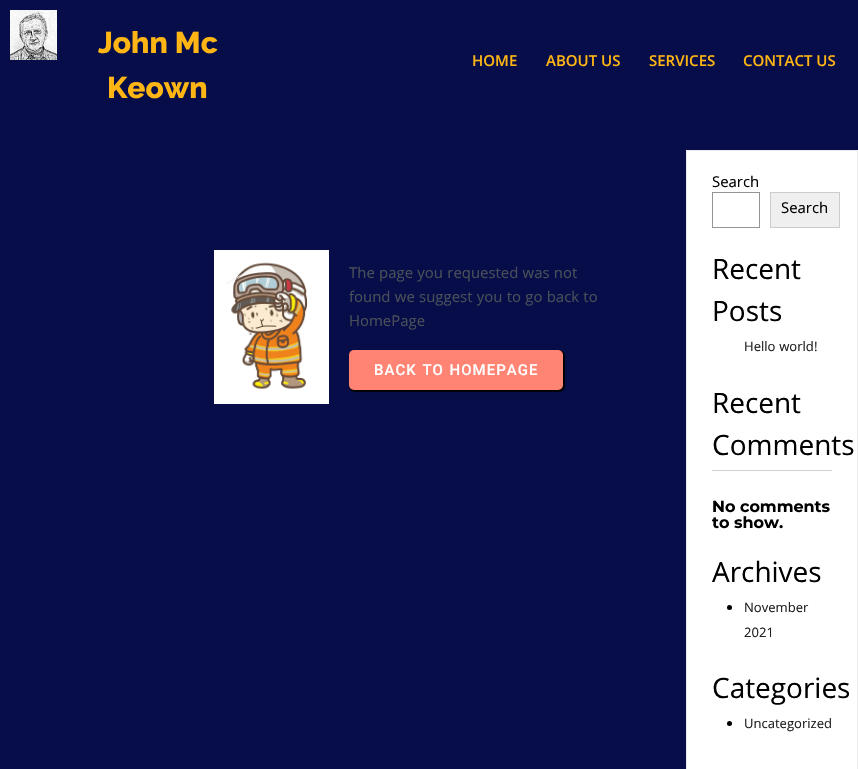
void draw(SkCanvas* canvas) {
  SkPaint paint;
  paint.setAntiAlias(true);
  auto face = [&](const char* family, int weight, float size, bool italic = false) {
    SkFontStyle style(weight, SkFontStyle::kNormal_Width,
      italic ? SkFontStyle::kItalic_Slant : SkFontStyle::kUpright_Slant);
    SkFont result(fontMgr->matchFamilyStyle(family, style), size);
    result.setSubpixel(true);
    return result;
  };
  auto writeSpaced = [&](const char* s, float x, float y, const SkFont& font, const SkPaint& ink, float letter, float word) {
    std::vector<SkGlyphID> glyphs(font.countText(s, strlen(s), SkTextEncoding::kUTF8));
    std::vector<float> xs(glyphs.size());
    font.textToGlyphs(s, strlen(s), SkTextEncoding::kUTF8, glyphs);
    font.getXPos(glyphs, xs, x);
    float extra = 0;
    for (size_t i = 0; i < glyphs.size(); i++) {
      xs[i] += extra;
      extra += letter + word * (glyphs[i] == font.unicharToGlyph(' '));
    }
    canvas->drawTextBlob(SkTextBlob::MakeFromPosHGlyphs(glyphs, xs, y, font), 0, 0, ink);
  };
  auto paste = [&](const char* path, float x, float y, float w, float h) {
    auto image = SkImages::DeferredFromEncodedData(SkData::MakeFromFileName(path));
    canvas->drawImageRect(image, SkRect::MakeXYWH(x, y, w, h), SkSamplingOptions());
  };
  canvas->clear(0xff070d49);
  paste("img/1.png", 10, 10, 47, 50);
  paste("img/2.png", 214, 250, 115, 154);
  paint.setColor(0xff000000);
  paint.setMaskFilter(SkMaskFilter::MakeBlur(kNormal_SkBlurStyle, 0.5f));
  canvas->drawRoundRect(SkRect::MakeXYWH(349, 350, 216, 42), 6, 6, paint);
  paint.setMaskFilter(nullptr);
  paint.setColor(0xffff8474);
  canvas->drawRoundRect(SkRect::MakeXYWH(349, 350, 214, 40), 5, 5, paint);
  paint.setColor(0xffffffff);
  canvas->drawRect(SkRect::MakeXYWH(686.5f, 150.5f, 171, 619), paint);
  paint.setStroke(true);
  paint.setStrokeWidth(1);
  paint.setColor(0xffeaeaea);
  canvas->drawRect(SkRect::MakeXYWH(686.5f, 150.5f, 171, 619), paint);
  paint.setColor(0xff949494);
  canvas->drawRect(SkRect::MakeXYWH(712.5f, 192.5f, 47, 35), paint);
  paint.setStroke(false);
  paint.setColor(0xffefefef);
  canvas->drawRect(SkRect::MakeXYWH(770.5f, 192.5f, 69, 35), paint);
  paint.setStroke(true);
  paint.setColor(0xffcccccc);
  canvas->drawRect(SkRect::MakeXYWH(770.5f, 192.5f, 69, 35), paint);
  paint.setStroke(false);
  paint.setColor(0xffd1d1d1);
  canvas->drawRect(SkRect::MakeXYWH(712, 470, 120, 1), paint);
  paint.setColor(0xff000000);
  canvas->drawCircle(729.5f, 607.5f, 2.5f, paint);
  canvas->drawCircle(729.5f, 723.5f, 2.5f, paint);
  auto f0 = face("Raleway", 800, 30);
  paint.setColor(0xffffb614);
  canvas->drawString("John Mc", 98, 53, f0, paint);
  canvas->drawString("Keown", 107, 98, f0, paint);
  auto f1 = face("Open Sans", 600, 15);
  {
    const struct { const char* s; float x, y; } items[] = {
      {"HOME", 472, 66},
      {"ABOUT US", 546, 66},
      {"SERVICES", 649, 66},
      {"CONTACT US", 743, 66},
    };
    for (auto [s, x, y] : items) {
      canvas->drawString(s, x, y, f1, paint);
    }
  }
  auto f2 = face("Khula", 400, 16);
  paint.setColor(0xff495057);
  {
    const struct { const char* s; float x, y; } items[] = {
      {"The page you requested was not", 349, 278},
      {"found we suggest you to go back to", 349, 302},
      {"HomePage", 349, 326},
    };
    for (auto [s, x, y] : items) {
      canvas->drawString(s, x, y, f2, paint);
    }
  }
  auto f3 = face("Roboto", 500, 15);
  paint.setColor(0xffffffff);
  writeSpaced("BACK TO HOMEPAGE", 374, 375, f3, paint, 1, 1);
  paint.setColor(0xff000000);
  canvas->drawString("Search", 712, 187, f2, paint);
  canvas->drawString("Search", 781, 213, f2, paint);
  auto f4 = face("Khula", 400, 30);
  canvas->drawString("Recent", 712, 279, f4, paint);
  canvas->drawString("Posts", 712, 321, f4, paint);
  auto f5 = face("Khula", 400, 14);
  paint.setColor(0xff212121);
  canvas->drawString("Hello world!", 744, 351, f5, paint);
  paint.setColor(0xff000000);
  canvas->drawString("Recent", 712, 413, f4, paint);
  canvas->drawString("Comments", 712, 455, f4, paint);
  auto f6 = face("Montserrat", 700, 16);
  canvas->drawString("No comments", 712, 512, f6, paint);
  canvas->drawString("to show.", 712, 528, f6, paint);
  canvas->drawString("Archives", 712, 582, f4, paint);
  paint.setColor(0xff212121);
  canvas->drawString("November", 744, 612, f5, paint);
  canvas->drawString("2021", 744, 637, f5, paint);
  paint.setColor(0xff000000);
  canvas->drawString("Categories", 712, 698, f4, paint);
  paint.setColor(0xff212121);
  canvas->drawString("Uncategorized", 744, 728, f5, paint);
}
